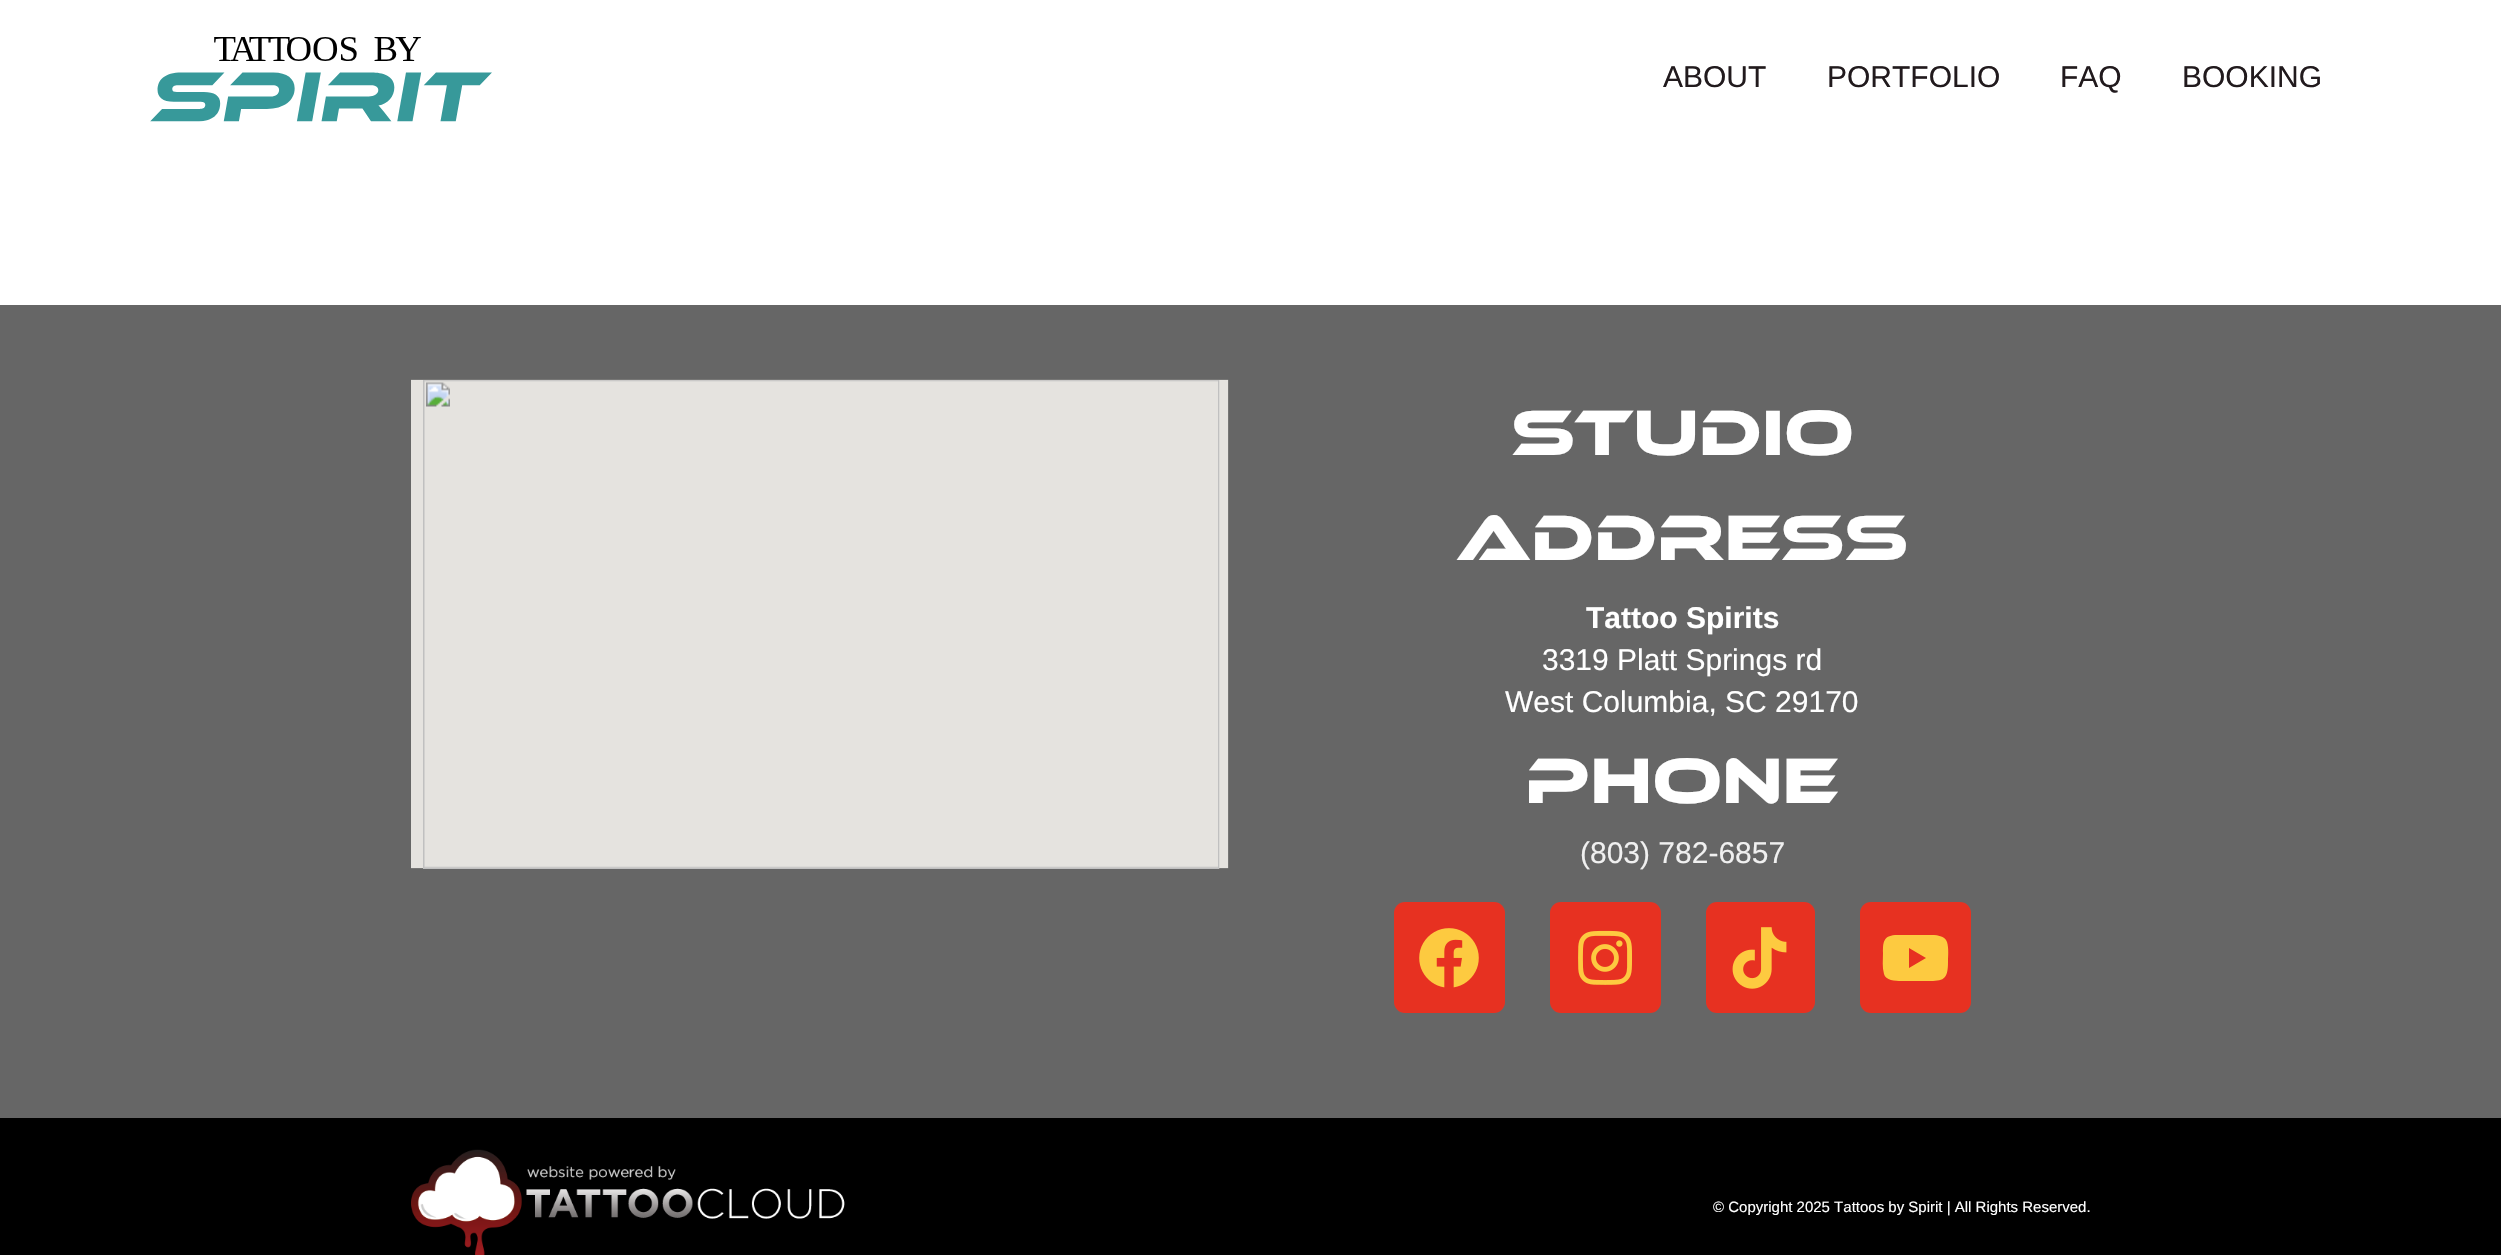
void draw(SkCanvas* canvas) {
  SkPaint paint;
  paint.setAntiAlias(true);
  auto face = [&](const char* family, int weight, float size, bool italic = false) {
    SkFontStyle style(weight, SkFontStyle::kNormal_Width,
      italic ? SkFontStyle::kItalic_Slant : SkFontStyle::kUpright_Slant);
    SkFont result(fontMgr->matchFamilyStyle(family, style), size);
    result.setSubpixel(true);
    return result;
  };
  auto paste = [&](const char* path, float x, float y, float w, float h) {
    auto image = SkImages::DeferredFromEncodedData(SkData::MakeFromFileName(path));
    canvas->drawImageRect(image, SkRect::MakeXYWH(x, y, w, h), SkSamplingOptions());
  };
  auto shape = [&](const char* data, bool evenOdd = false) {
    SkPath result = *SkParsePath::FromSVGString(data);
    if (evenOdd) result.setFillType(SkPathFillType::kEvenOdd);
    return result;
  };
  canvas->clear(0xffffffff);
  paste("img/1.png", 150, 37, 342, 85);
  paint.setColor(0xff666666);
  canvas->drawRect(SkRect::MakeXYWH(0, 305, 2501, 813), paint);
  paste("img/2.png", 411, 379, 818, 490);
  paint.setColor(0xffe73121);
  canvas->drawRoundRect(SkRect::MakeXYWH(1394, 902, 111, 111), 11, 11, paint);
  paste("img/3.png", 1419, 928, 60, 60);
  canvas->drawRoundRect(SkRect::MakeXYWH(1550, 902, 111, 111), 11, 11, paint);
  paste("img/4.png", 1578, 930, 54, 55);
  canvas->drawRoundRect(SkRect::MakeXYWH(1706, 902, 109, 111), 11, 11, paint);
  paste("img/5.png", 1732, 927, 55, 62);
  canvas->drawRoundRect(SkRect::MakeXYWH(1860, 902, 111, 111), 11, 11, paint);
  paint.setColor(0xfffdca40);
  canvas->drawPath(shape("M1947 942C1949 949 1948 956 1948 962C1948 982 1942 981 1923 981H1906C1900 981 1886 982 1884 974C1882 967 1883 960 1883 953C1883 943 1883 936 1895 935H1910H1929C1935 935 1945 935 1947 942ZM1909 968L1926 958L1909 948Z"), paint);
  paint.setColor(0xff000000);
  canvas->drawRect(SkRect::MakeXYWH(0, 1118, 2501, 137), paint);
  paste("img/6.png", 411, 1149, 434, 106);
  auto f0 = face("Liberation Sans", 400, 30);
  paint.setColor(0xff211a1d);
  {
    const struct { const char* s; float x, y; } items[] = {
      {"ABOUT", 1663, 87},
      {"PORTFOLIO", 1827, 87},
      {"FAQ", 2060, 87},
      {"BOOKING", 2182, 87},
    };
    for (auto [s, x, y] : items) {
      canvas->drawString(s, x, y, f0, paint);
    }
  }
  auto f1 = face("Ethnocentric", 400, 66);
  paint.setColor(0xffffffff);
  canvas->drawString("studio", 1511, 455, f1, paint);
  canvas->drawString("address", 1456, 560, f1, paint);
  auto f2 = face("Liberation Sans", 700, 30);
  canvas->drawString("Tattoo Spirits", 1586, 628, f2, paint);
  canvas->drawString("3319 Platt Springs rd", 1542, 670, f0, paint);
  canvas->drawString("West Columbia, SC 29170", 1505, 712, f0, paint);
  canvas->drawString("phone", 1525, 803, f1, paint);
  paint.setColor(0xfff0f0f0);
  canvas->drawString("(803) 782-6857", 1580, 863, f0, paint);
  auto f3 = face("Liberation Sans", 400, 15);
  paint.setColor(0xffffffff);
  canvas->drawString("© Copyright 2025 Tattoos by Spirit | All Rights Reserved.", 1713, 1212, f3, paint);
}
